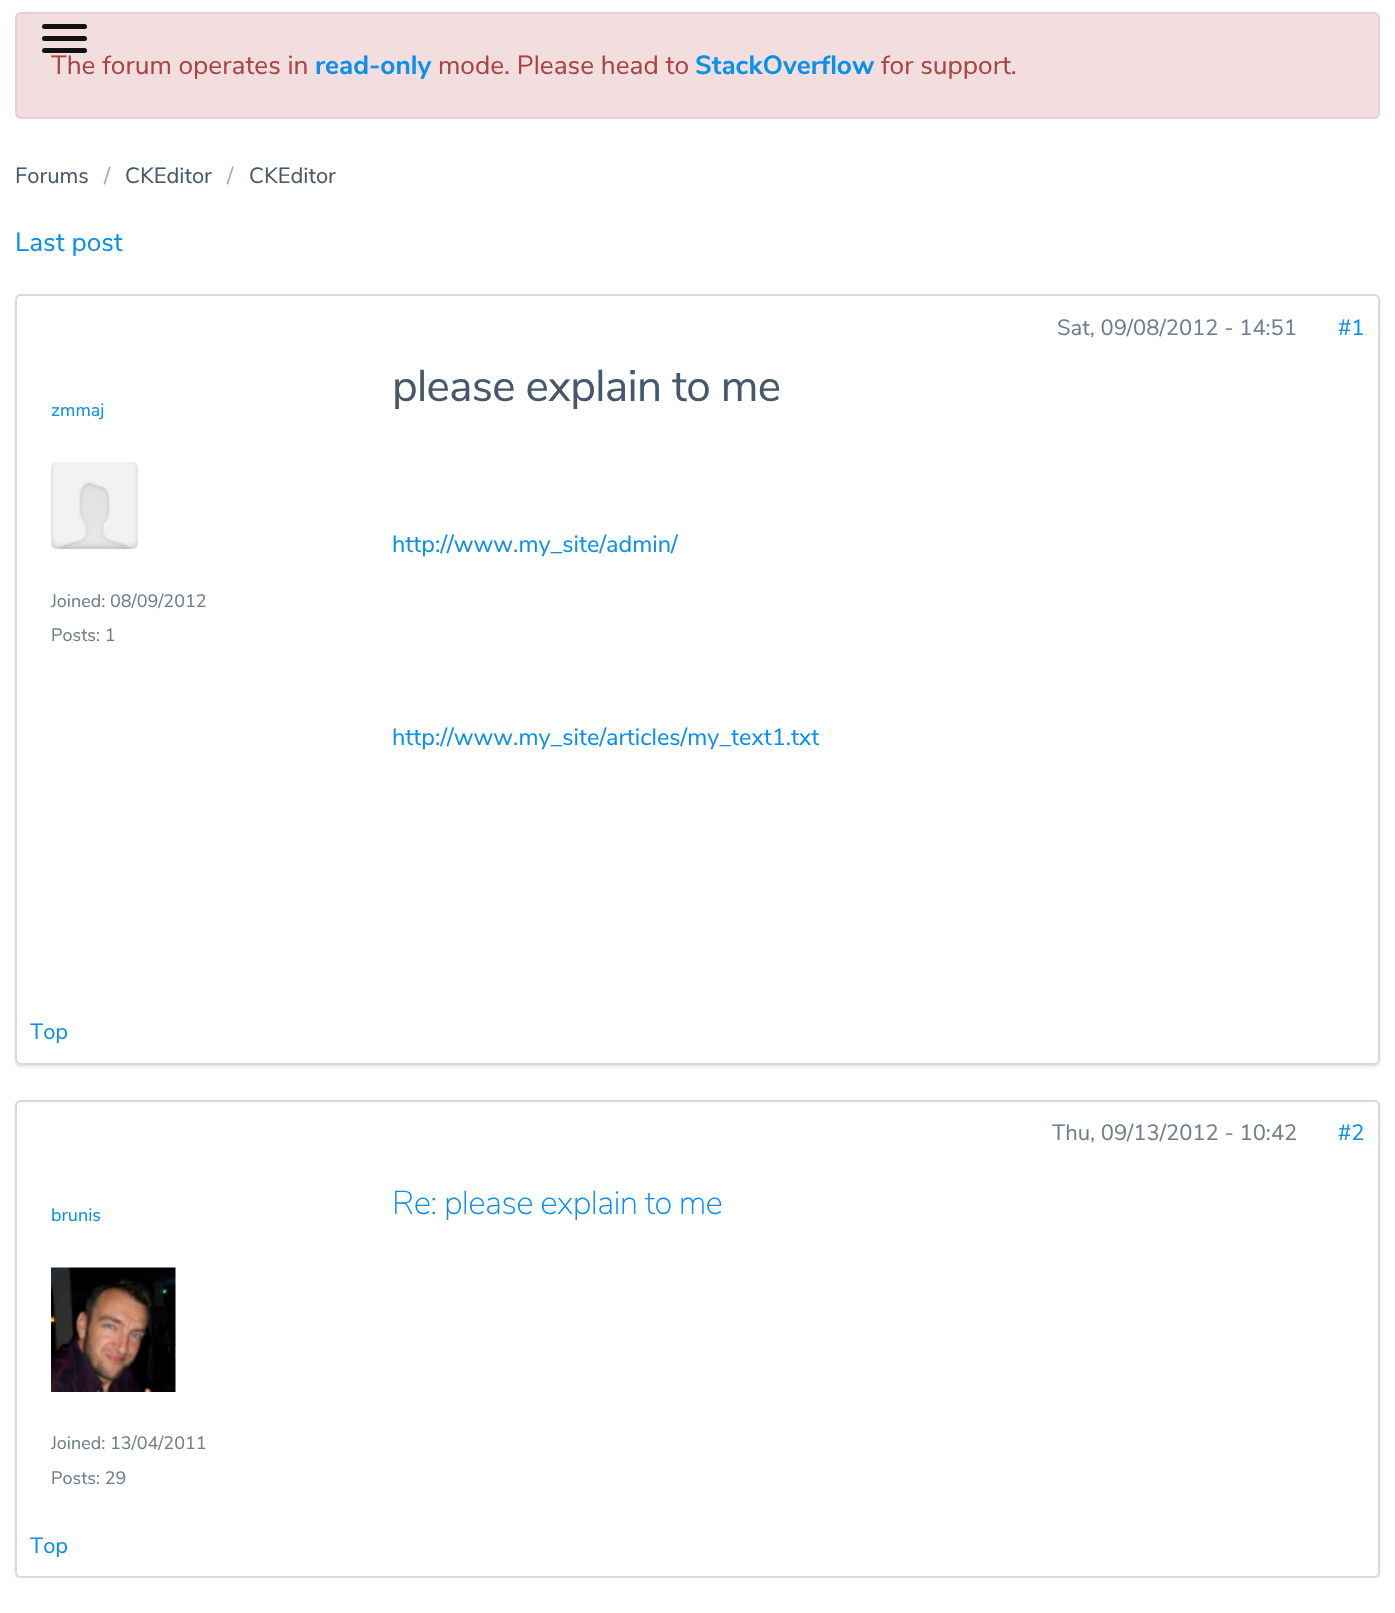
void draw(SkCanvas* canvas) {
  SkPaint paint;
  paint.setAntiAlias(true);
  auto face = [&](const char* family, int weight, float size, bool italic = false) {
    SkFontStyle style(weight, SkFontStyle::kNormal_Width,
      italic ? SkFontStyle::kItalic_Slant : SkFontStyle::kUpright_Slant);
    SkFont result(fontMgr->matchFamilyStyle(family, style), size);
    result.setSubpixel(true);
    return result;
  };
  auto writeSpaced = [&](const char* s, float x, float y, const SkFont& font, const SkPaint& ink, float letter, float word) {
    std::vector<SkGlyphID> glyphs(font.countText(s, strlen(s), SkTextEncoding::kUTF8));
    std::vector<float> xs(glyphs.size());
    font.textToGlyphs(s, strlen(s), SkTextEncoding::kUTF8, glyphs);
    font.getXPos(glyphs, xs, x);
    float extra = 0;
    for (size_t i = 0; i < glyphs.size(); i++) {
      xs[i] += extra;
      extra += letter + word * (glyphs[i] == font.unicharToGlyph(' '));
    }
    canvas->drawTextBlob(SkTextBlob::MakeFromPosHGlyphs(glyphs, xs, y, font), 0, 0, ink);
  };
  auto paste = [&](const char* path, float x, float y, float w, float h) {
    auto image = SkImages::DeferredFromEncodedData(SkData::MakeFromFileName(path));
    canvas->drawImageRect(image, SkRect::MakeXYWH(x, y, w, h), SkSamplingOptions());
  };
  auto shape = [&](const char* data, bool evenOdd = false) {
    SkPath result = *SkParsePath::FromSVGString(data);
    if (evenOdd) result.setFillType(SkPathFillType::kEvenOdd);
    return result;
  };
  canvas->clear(0xffffffff);
  paint.setColor(0xfff2dede);
  canvas->drawRoundRect(SkRect::MakeXYWH(16, 13, 1363, 105), 5, 5, paint);
  paint.setStroke(true);
  paint.setStrokeWidth(2);
  paint.setColor(0xffebccd1);
  canvas->drawRoundRect(SkRect::MakeXYWH(16, 13, 1363, 105), 5, 5, paint);
  paint.setStroke(false);
  paint.setColor(0xff111111);
  canvas->drawRoundRect(SkRect::MakeXYWH(42, 24, 45, 5), 2.5f, 2.5f, paint);
  canvas->drawRoundRect(SkRect::MakeXYWH(42, 36, 45, 5), 2.5f, 2.5f, paint);
  canvas->drawRoundRect(SkRect::MakeXYWH(42, 48, 45, 5), 2.5f, 2.5f, paint);
  canvas->save();
  canvas->clipPath(shape("M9 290H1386V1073H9ZM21 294H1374C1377.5 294 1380 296.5 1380 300V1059C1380 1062.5 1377.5 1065 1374 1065H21C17.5 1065 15 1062.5 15 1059V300C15 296.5 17.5 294 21 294Z", true), true);
  paint.setColor(0x1a000000);
  paint.setMaskFilter(SkMaskFilter::MakeBlur(kNormal_SkBlurStyle, 1.5f));
  canvas->drawRoundRect(SkRect::MakeXYWH(15, 296, 1365, 771), 6, 6, paint);
  paint.setMaskFilter(nullptr);
  canvas->restore();
  paint.setStroke(true);
  paint.setColor(0x26000000);
  canvas->drawRoundRect(SkRect::MakeXYWH(16, 295, 1363, 769), 5, 5, paint);
  paste("img/1.png", 51, 462, 87, 87);
  canvas->save();
  canvas->clipRect(SkRect::MakeXYWH(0, 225, 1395, 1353));
  canvas->clipPath(shape("M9 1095H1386V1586H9ZM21 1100H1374C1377.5 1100 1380 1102.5 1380 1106V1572C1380 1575.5 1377.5 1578 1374 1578H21C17.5 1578 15 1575.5 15 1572V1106C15 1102.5 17.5 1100 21 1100Z", true), true);
  paint.setStroke(false);
  paint.setColor(0x1a000000);
  paint.setMaskFilter(SkMaskFilter::MakeBlur(kNormal_SkBlurStyle, 1.5f));
  canvas->drawRoundRect(SkRect::MakeXYWH(15, 1101, 1365, 479), 6, 6, paint);
  paint.setMaskFilter(nullptr);
  canvas->restore();
  paint.setStroke(true);
  paint.setColor(0x26000000);
  canvas->drawRoundRect(SkRect::MakeXYWH(16, 1101, 1363, 476), 5, 5, paint);
  paste("img/2.png", 51, 1267, 125, 125);
  auto f0 = face("Nunito Sans", 400, 26.25f);
  paint.setStroke(false);
  paint.setColor(0xffa94442);
  canvas->drawString("The forum operates in", 51, 74, f0, paint);
  auto f1 = face("Nunito Sans", 700, 26.25f);
  paint.setColor(0xff0a90eb);
  canvas->drawString("read-only", 315, 74, f1, paint);
  paint.setColor(0xffa94442);
  canvas->drawString("mode. Please head to", 438, 74, f0, paint);
  paint.setColor(0xff0a90eb);
  canvas->drawString("StackOverflow", 695, 74, f1, paint);
  paint.setColor(0xffa94442);
  canvas->drawString("for support.", 881, 74, f0, paint);
  auto f2 = face("Nunito Sans", 400, 22);
  paint.setColor(0xff48586c);
  canvas->drawString("Forums", 15, 183, f2, paint);
  paint.setColor(0xffa3abb6);
  canvas->drawString("/", 104, 183, f2, paint);
  paint.setColor(0xff48586c);
  canvas->drawString("CKEditor", 125, 183, f2, paint);
  paint.setColor(0xffa3abb6);
  canvas->drawString("/", 227, 183, f2, paint);
  paint.setColor(0xff48586c);
  canvas->drawString("CKEditor", 249, 183, f2, paint);
  paint.setColor(0xff0a90eb);
  canvas->drawString("Last post", 15, 251, f0, paint);
  paint.setColor(0xff707d8c);
  canvas->drawString("Sat, 09/08/2012 - 14:51", 1057, 335, f2, paint);
  paint.setColor(0xff0a90eb);
  canvas->drawString("#1", 1338, 335, f2, paint);
  auto f3 = face("Nunito Sans", 400, 18);
  canvas->drawString("zmmaj", 51, 416, f3, paint);
  paint.setColor(0xff707d8c);
  canvas->drawString("Joined: 08/09/2012", 51, 607, f3, paint);
  canvas->drawString("Posts: 1", 51, 641, f3, paint);
  auto f4 = face("Nunito Sans", 400, 44.25f);
  paint.setColor(0xff48586c);
  writeSpaced("please explain to me", 392, 401, f4, paint, -0.75f, 0);
  auto f5 = face("Nunito Sans", 400, 23.5f);
  paint.setColor(0xff0a90eb);
  canvas->drawString("http://www.my_site/admin/", 392, 552, f5, paint);
  canvas->drawString("http://www.my_site/articles/my_text1.txt", 392, 745, f5, paint);
  canvas->drawString("Top", 30, 1039, f2, paint);
  paint.setColor(0xff707d8c);
  canvas->drawString("Thu, 09/13/2012 - 10:42", 1052, 1140, f2, paint);
  paint.setColor(0xff0a90eb);
  canvas->drawString("#2", 1338, 1140, f2, paint);
  auto f6 = face("Nunito Sans", 200, 33.1f);
  writeSpaced("Re: please explain to me", 392, 1214, f6, paint, -0.75f, 0);
  canvas->drawString("brunis", 51, 1221, f3, paint);
  paint.setColor(0xff707d8c);
  canvas->drawString("Joined: 13/04/2011", 51, 1449, f3, paint);
  canvas->drawString("Posts: 29", 51, 1484, f3, paint);
  paint.setColor(0xff0a90eb);
  canvas->drawString("Top", 30, 1553, f2, paint);
}
